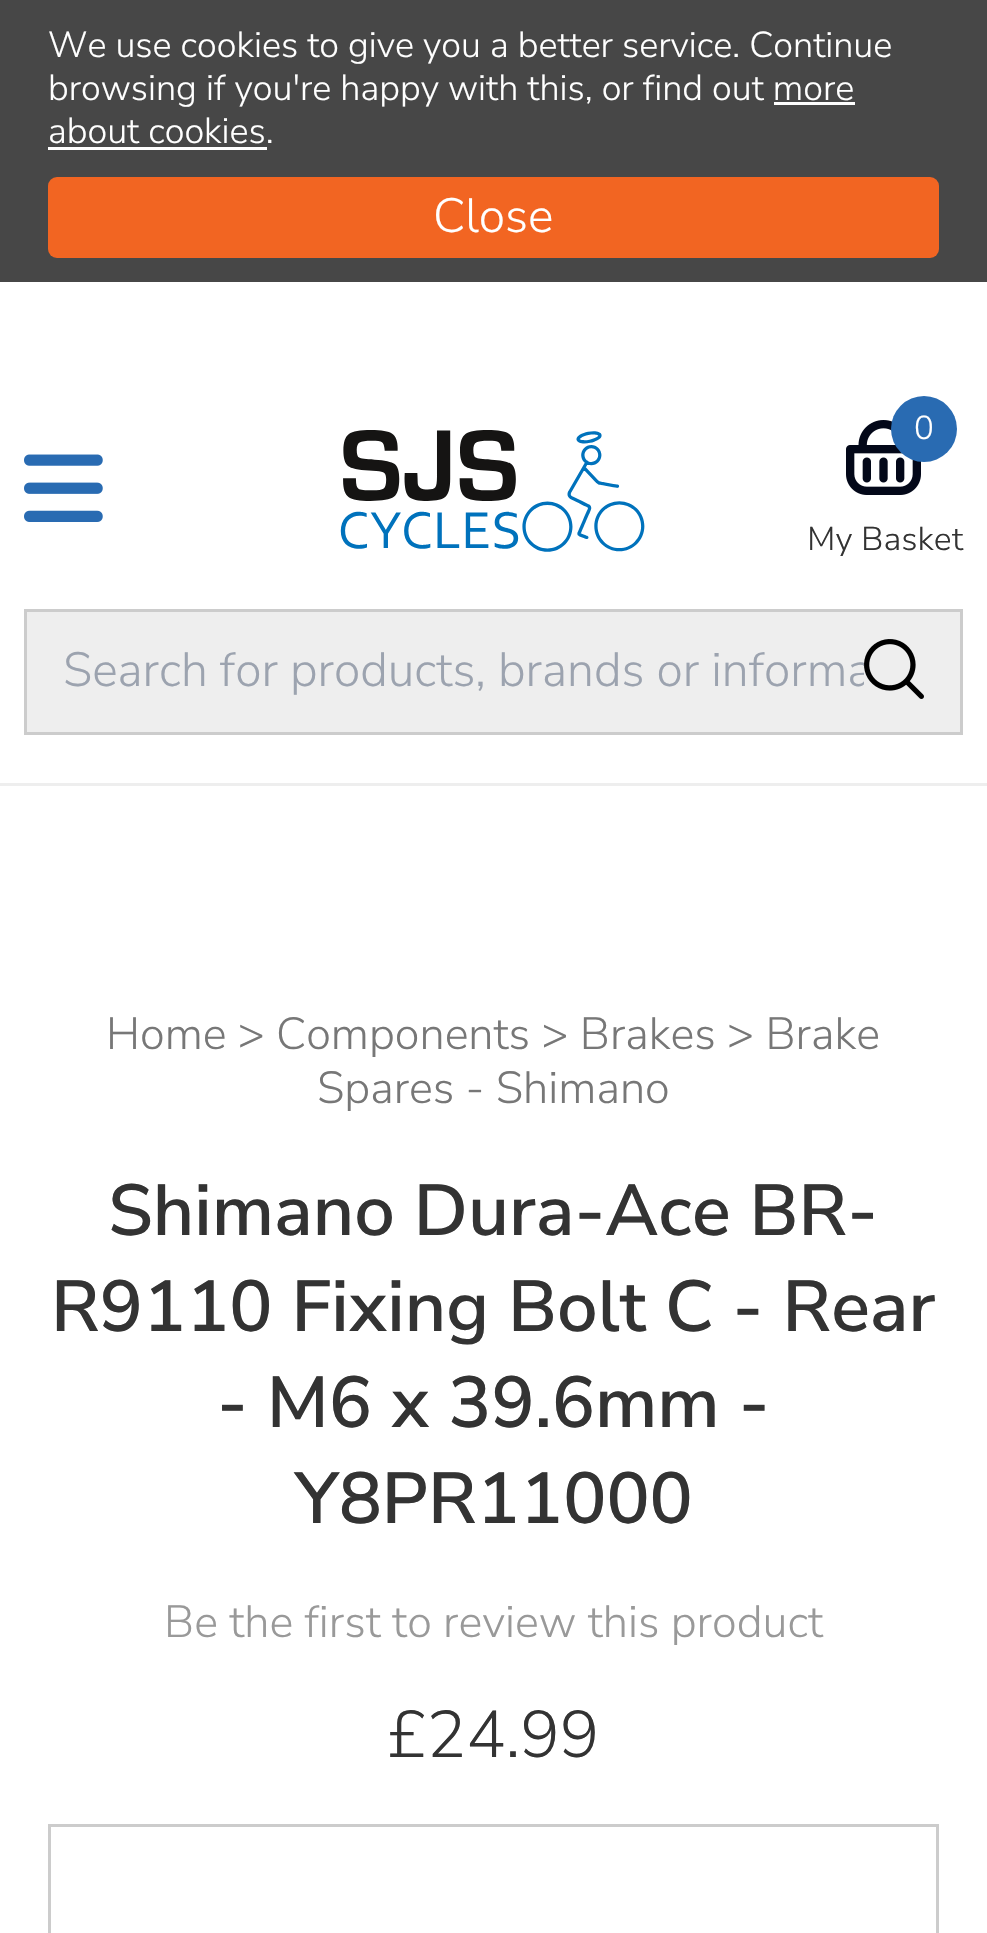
void draw(SkCanvas* canvas) {
  SkPaint paint;
  paint.setAntiAlias(true);
  auto face = [&](const char* family, int weight, float size, bool italic = false) {
    SkFontStyle style(weight, SkFontStyle::kNormal_Width,
      italic ? SkFontStyle::kItalic_Slant : SkFontStyle::kUpright_Slant);
    SkFont result(fontMgr->matchFamilyStyle(family, style), size);
    result.setSubpixel(true);
    return result;
  };
  auto paste = [&](const char* path, float x, float y, float w, float h) {
    auto image = SkImages::DeferredFromEncodedData(SkData::MakeFromFileName(path));
    canvas->drawImageRect(image, SkRect::MakeXYWH(x, y, w, h), SkSamplingOptions());
  };
  canvas->clear(0xffffffff);
  {
    const struct { float x, y, w, h; SkColor color; } items[] = {
      {0, 0, 987, 282, 0xff474747},
      {774, 102, 81, 3, 0xffffffff},
      {48, 147, 219, 3, 0xffffffff},
    };
    for (auto [x, y, w, h, color] : items) {
      paint.setColor(color);
      canvas->drawRect(SkRect::MakeXYWH(x, y, w, h), paint);
    }
  }
  paint.setColor(0xfff26522);
  canvas->drawRoundRect(SkRect::MakeXYWH(48, 177, 891, 81), 9, 9, paint);
  paint.setColor(0xffeeeeee);
  canvas->drawRect(SkRect::MakeXYWH(0, 783, 987, 3), paint);
  paste("img/1.png", 24, 454, 79, 68);
  paste("img/2.png", 340, 430, 305, 122);
  paste("img/3.png", 846, 420, 75, 75);
  paint.setColor(0xff296bb2);
  canvas->drawCircle(924, 429, 33, paint);
  paint.setColor(0xffeeeeee);
  canvas->drawRect(SkRect::MakeXYWH(25.5f, 610.5f, 936, 123), paint);
  paint.setStroke(true);
  paint.setStrokeWidth(3);
  paint.setColor(0xffcccccc);
  canvas->drawRect(SkRect::MakeXYWH(25.5f, 610.5f, 936, 123), paint);
  paste("img/4.png", 864, 639, 60, 60);
  canvas->drawRect(SkRect::MakeXYWH(49.5f, 1825.5f, 888, 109), paint);
  auto f0 = face("Nunito Sans", 300, 36);
  paint.setStroke(false);
  paint.setColor(0xffffffff);
  {
    const struct { const char* s; float x, y; } items[] = {
      {"We use cookies to give you a better service. Continue", 48, 57},
      {"browsing if you're happy with this, or find out more", 48, 100},
      {"about cookies.", 48, 143},
    };
    for (auto [s, x, y] : items) {
      canvas->drawString(s, x, y, f0, paint);
    }
  }
  auto f1 = face("Nunito Sans", 300, 48);
  canvas->drawString("Close", 433, 232, f1, paint);
  auto f2 = face("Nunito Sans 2", 300, 33);
  canvas->drawString("0", 914, 439, f2, paint);
  paint.setColor(0xff333333);
  canvas->drawString("My Basket", 807, 550, f2, paint);
  canvas->save();
  canvas->clipRect(SkRect::MakeXYWH(63, 639, 801, 66));
  paint.setColor(0xff9ca3af);
  canvas->drawString("Search for products, brands or informa", 63, 686, f1, paint);
  canvas->restore();
  auto f3 = face("Nunito Sans", 300, 45);
  paint.setColor(0xff777777);
  canvas->drawString("Home > Components > Brakes > Brake", 106, 1049, f3, paint);
  canvas->drawString("Spares - Shimano", 317, 1103, f3, paint);
  auto f4 = face("Nunito Sans", 600, 72);
  paint.setColor(0xff333333);
  {
    const struct { const char* s; float x, y; } items[] = {
      {"Shimano Dura-Ace BR-", 108, 1235},
      {"R9110 Fixing Bolt C - Rear", 51, 1331},
      {"- M6 x 39.6mm -", 217, 1427},
      {"Y8PR11000", 295, 1523},
    };
    for (auto [s, x, y] : items) {
      canvas->drawString(s, x, y, f4, paint);
    }
  }
  paint.setColor(0xff999999);
  canvas->drawString("Be the first to review this product", 164, 1637, f3, paint);
  auto f5 = face("Nunito Sans", 300, 66);
  paint.setColor(0xff333333);
  canvas->drawString("£24.99", 387, 1757, f5, paint);
}
